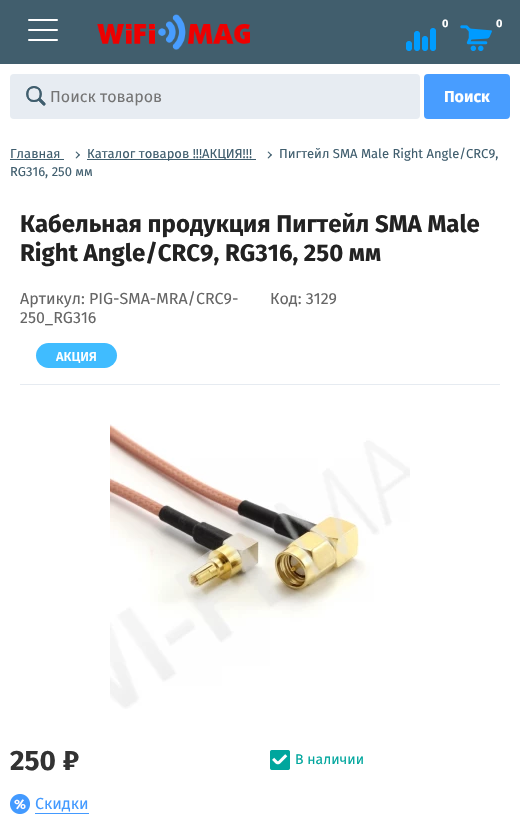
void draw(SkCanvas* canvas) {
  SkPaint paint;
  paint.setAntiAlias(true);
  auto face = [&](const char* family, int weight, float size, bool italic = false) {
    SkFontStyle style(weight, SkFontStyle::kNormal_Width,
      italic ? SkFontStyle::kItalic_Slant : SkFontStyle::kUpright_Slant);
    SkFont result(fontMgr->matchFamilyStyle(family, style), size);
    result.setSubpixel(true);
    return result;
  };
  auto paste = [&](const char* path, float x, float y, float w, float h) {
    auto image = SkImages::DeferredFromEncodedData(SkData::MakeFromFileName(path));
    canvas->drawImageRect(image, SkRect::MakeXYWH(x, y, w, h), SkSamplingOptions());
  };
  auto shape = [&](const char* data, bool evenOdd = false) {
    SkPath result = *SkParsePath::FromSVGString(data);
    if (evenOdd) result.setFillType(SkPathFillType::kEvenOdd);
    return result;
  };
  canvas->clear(0xffffffff);
  paint.setColor(0xff415e6d);
  canvas->drawRect(SkRect::MakeXYWH(0, 0, 520, 64), paint);
  paint.setColor(0xffffffff);
  canvas->drawRoundRect(SkRect::MakeXYWH(28, 29, 30, 2), 1, 1, paint);
  canvas->drawRoundRect(SkRect::MakeXYWH(28, 19, 30, 2), 1, 1, paint);
  canvas->drawRoundRect(SkRect::MakeXYWH(28, 39, 30, 2), 1, 1, paint);
  paste("img/1.png", 97, 14, 153, 36);
  paste("img/2.png", 406, 28, 30, 23);
  paste("img/3.png", 460, 25, 32, 26);
  paint.setColor(0xffe7ecf2);
  canvas->drawRoundRect(SkRect::MakeXYWH(10, 74, 410, 45), 4, 4, paint);
  paint.setStroke(true);
  paint.setStrokeWidth(3);
  paint.setStrokeCap(SkPaint::kRound_Cap);
  paint.setStrokeJoin(SkPaint::kRound_Join);
  paint.setColor(0xff405e6e);
  canvas->drawPath(shape("M44 104L39.5 99.5"), paint);
  paint.setStrokeWidth(2);
  paint.setStrokeCap(SkPaint::kButt_Cap);
  paint.setStrokeJoin(SkPaint::kMiter_Join);
  canvas->drawPath(shape("M34 101C43 101 43 87 34 87C25 87 25 101 34 101Z"), paint);
  paint.setStrokeWidth(3);
  paint.setStrokeCap(SkPaint::kRound_Cap);
  paint.setStrokeJoin(SkPaint::kRound_Join);
  canvas->drawPath(shape("M44 104L39.5 99.5"), paint);
  paint.setStrokeWidth(2);
  paint.setStrokeCap(SkPaint::kButt_Cap);
  paint.setStrokeJoin(SkPaint::kMiter_Join);
  canvas->drawPath(shape("M34 101C43 101 43 87 34 87C25 87 25 101 34 101Z"), paint);
  paint.setStroke(false);
  paint.setColor(0xff489dff);
  canvas->drawRoundRect(SkRect::MakeXYWH(424, 74, 86, 45), 4, 4, paint);
  paint.setColor(0xff405e6e);
  canvas->drawPath(shape("M267.5 152L268.5 151.5L272 155L271 155.5Z"), paint);
  canvas->drawPath(shape("M267.5 158L271 154L272 155L268.5 158.5Z"), paint);
  canvas->drawRect(SkRect::MakeXYWH(10, 159, 54, 1), paint);
  canvas->drawPath(shape("M75.5 152L76.5 151.5L80 155L79 155.5Z"), paint);
  canvas->drawPath(shape("M75.5 158L79 154L80 155L76.5 158.5Z"), paint);
  canvas->drawRect(SkRect::MakeXYWH(87, 159, 169, 1), paint);
  paint.setColor(0xff40bcff);
  canvas->drawRoundRect(SkRect::MakeXYWH(36, 343, 81, 25), 12.5f, 12.5f, paint);
  paint.setColor(0xffe6ebf1);
  canvas->drawRect(SkRect::MakeXYWH(20, 384, 480, 1), paint);
  paste("img/4.png", 110, 424, 300, 285);
  paste("img/5.png", 10, 794, 20, 20);
  paint.setColor(0xff439aff);
  canvas->drawRect(SkRect::MakeXYWH(35, 813, 54, 1), paint);
  paste("img/6.png", 270, 750, 20, 20);
  auto f0 = face("Fira Sans", 700, 11);
  paint.setColor(0xffffffff);
  canvas->drawString("0", 442, 27, f0, paint);
  canvas->drawString("0", 496, 27, f0, paint);
  auto f1 = face("Fira Sans", 400, 16);
  paint.setColor(0xff757575);
  canvas->drawString("Поиск товаров", 50, 102, f1, paint);
  auto f2 = face("Fira Sans", 700, 16);
  paint.setColor(0xffffffff);
  canvas->drawString("Поиск", 444, 102, f2, paint);
  auto f3 = face("Fira Sans", 400, 13);
  paint.setColor(0xff405e6e);
  {
    const struct { const char* s; float x, y; } items[] = {
      {"Пигтейл SMA Male Right Angle/CRC9,", 279, 158},
      {"RG316, 250 мм", 10, 176},
      {"Главная", 10, 158},
      {"Каталог товаров !!!АКЦИЯ!!!", 87, 158},
    };
    for (auto [s, x, y] : items) {
      canvas->drawString(s, x, y, f3, paint);
    }
  }
  auto f4 = face("Fira Sans", 700, 24);
  paint.setColor(0xff222222);
  canvas->drawString("Кабельная продукция Пигтейл SMA Male", 20, 232, f4, paint);
  canvas->drawString("Right Angle/CRC9, RG316, 250 мм", 20, 261, f4, paint);
  paint.setColor(0xff666666);
  {
    const struct { const char* s; float x, y; } items[] = {
      {"Артикул: PIG-SMA-MRA/CRC9-", 20, 304},
      {"250_RG316", 20, 323},
      {"Код: 3129", 270, 304},
    };
    for (auto [s, x, y] : items) {
      canvas->drawString(s, x, y, f1, paint);
    }
  }
  auto f5 = face("Fira Sans", 500, 13);
  paint.setColor(0xffffffff);
  canvas->drawString("АКЦИЯ", 56, 361, f5, paint);
  auto f6 = face("Fira Sans", 700, 28);
  paint.setColor(0xff333333);
  canvas->drawString("250 ₽", 10, 770, f6, paint);
  paint.setColor(0xff439aff);
  canvas->drawString("Скидки", 35, 809, f1, paint);
  auto f7 = face("Fira Sans", 400, 14);
  paint.setColor(0xff00a69d);
  canvas->drawString("В наличии", 295, 764, f7, paint);
}
